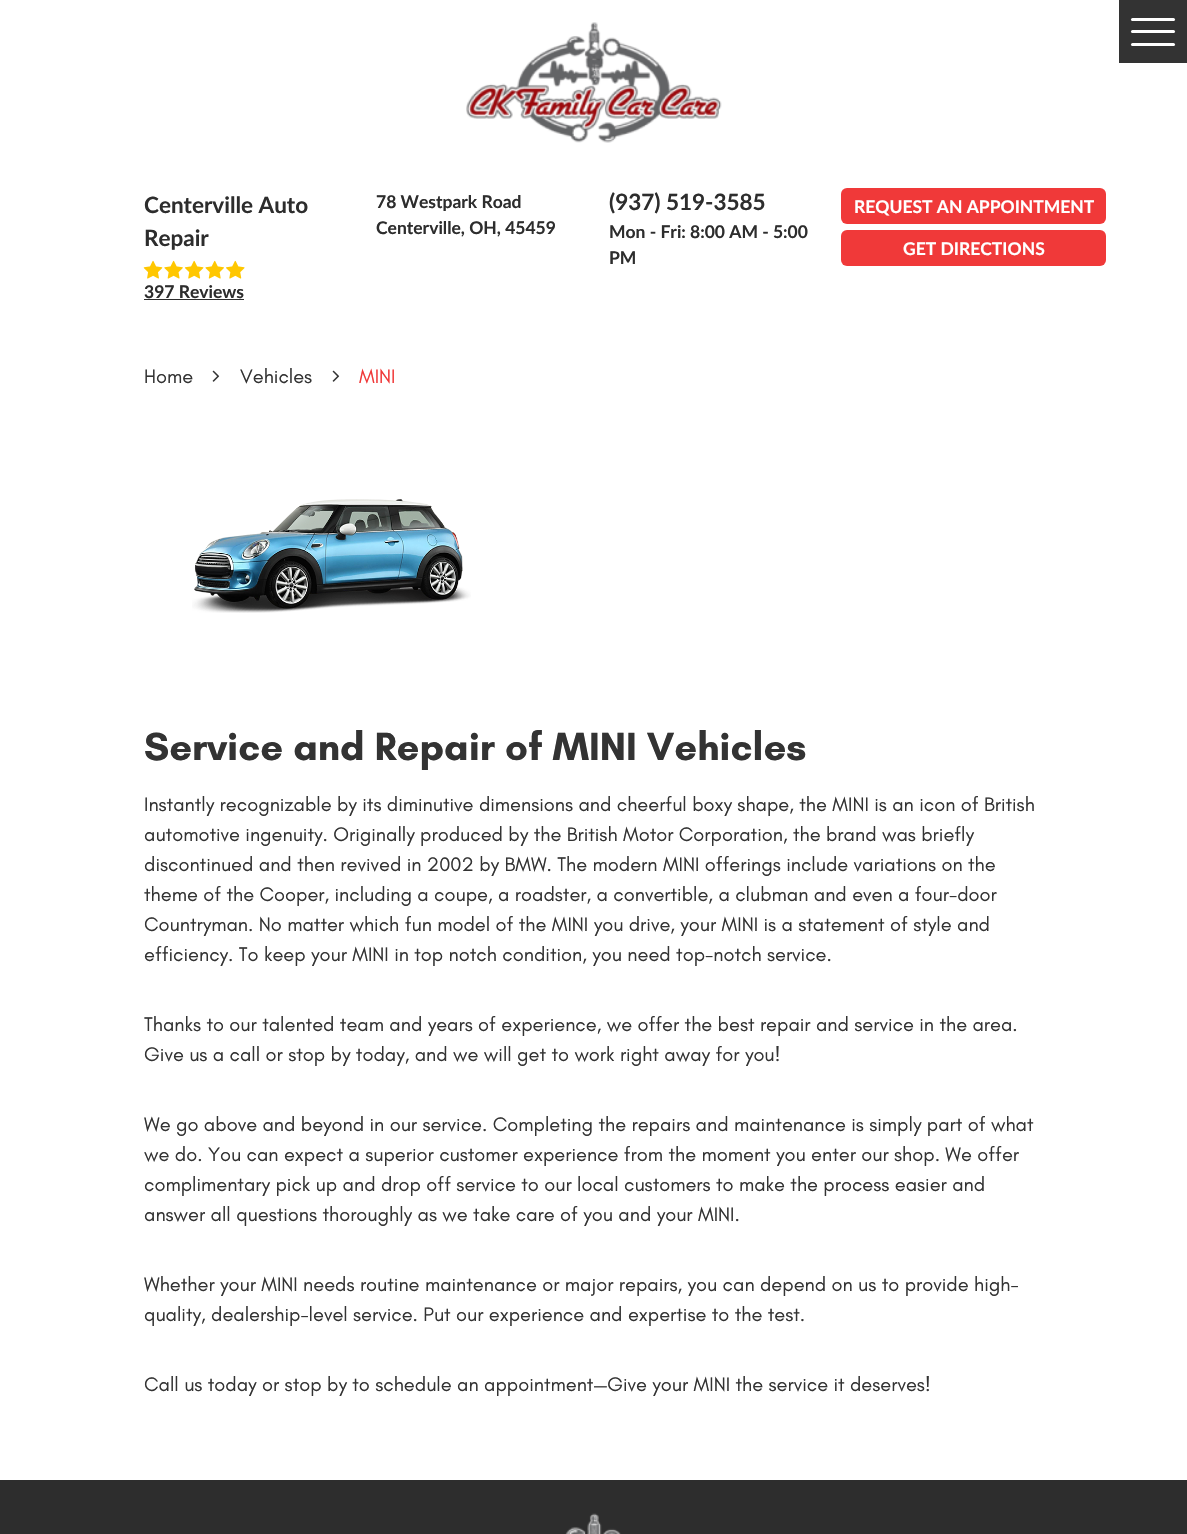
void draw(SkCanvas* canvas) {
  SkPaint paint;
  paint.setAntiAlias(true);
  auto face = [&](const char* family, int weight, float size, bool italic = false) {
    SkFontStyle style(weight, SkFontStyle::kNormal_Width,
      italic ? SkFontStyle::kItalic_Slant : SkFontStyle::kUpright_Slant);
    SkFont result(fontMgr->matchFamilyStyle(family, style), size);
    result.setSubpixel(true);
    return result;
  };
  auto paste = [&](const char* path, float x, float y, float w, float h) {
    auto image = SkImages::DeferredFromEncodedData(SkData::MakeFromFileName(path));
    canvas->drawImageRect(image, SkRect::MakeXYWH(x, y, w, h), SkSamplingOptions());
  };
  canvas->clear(0xffffffff);
  paste("img/1.png", 466, 22, 256, 121);
  paint.setColor(0xff333333);
  canvas->drawRect(SkRect::MakeXYWH(1119, 0, 68, 63), paint);
  paint.setColor(0xffffffff);
  canvas->drawRoundRect(SkRect::MakeXYWH(1131, 30, 44, 3), 1.5f, 1.5f, paint);
  canvas->drawRoundRect(SkRect::MakeXYWH(1131, 18, 44, 3), 1.5f, 1.5f, paint);
  canvas->drawRoundRect(SkRect::MakeXYWH(1131, 43, 44, 3), 1.5f, 1.5f, paint);
  paste("img/2.png", 143, 260, 102, 19);
  paint.setColor(0xff2d2d2d);
  canvas->drawRect(SkRect::MakeXYWH(144, 299, 100, 1), paint);
  paint.setColor(0xfff03939);
  canvas->drawRoundRect(SkRect::MakeXYWH(841, 188, 265, 36), 6, 6, paint);
  canvas->drawRoundRect(SkRect::MakeXYWH(841, 230, 265, 36), 6, 6, paint);
  paste("img/3.png", 212, 370, 8, 12);
  paste("img/3.png", 332, 370, 8, 12);
  paste("img/4.png", 192, 499, 279, 114);
  paint.setColor(0xff2d2d2d);
  canvas->drawRect(SkRect::MakeXYWH(0, 1480, 1187, 54), paint);
  paste("img/5.png", 565, 1513, 56, 21);
  auto f0 = face("Lato", 700, 22.5f);
  canvas->drawString("Centerville Auto", 144, 213, f0, paint);
  canvas->drawString("Repair", 144, 246, f0, paint);
  auto f1 = face("Lato", 700, 17.5f);
  {
    const struct { const char* s; float x, y; } items[] = {
      {"397 Reviews", 144, 298},
      {"78 Westpark Road", 376, 208},
      {"Centerville, OH, 45459", 376, 234},
    };
    for (auto [s, x, y] : items) {
      canvas->drawString(s, x, y, f1, paint);
    }
  }
  canvas->drawString("(937) 519-3585", 609, 210, f0, paint);
  canvas->drawString("Mon - Fri: 8:00 AM - 5:00", 609, 238, f1, paint);
  canvas->drawString("PM", 609, 264, f1, paint);
  paint.setColor(0xffffffff);
  canvas->drawString("REQUEST AN APPOINTMENT", 854, 213, f1, paint);
  canvas->drawString("GET DIRECTIONS", 903, 255, f1, paint);
  auto f2 = face("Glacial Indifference", 400, 20);
  paint.setColor(0xff333333);
  canvas->drawString("Home", 144, 383, f2, paint);
  canvas->drawString("Vehicles", 240, 383, f2, paint);
  paint.setColor(0xfff03939);
  canvas->drawString("MINI", 359, 383, f2, paint);
  auto f3 = face("Glacial Indifference", 700, 40);
  paint.setColor(0xff333333);
  canvas->drawString("Service and Repair of MINI Vehicles", 144, 760, f3, paint);
  {
    const struct { const char* s; float x, y; } items[] = {
      {"Instantly recognizable by its diminutive dimensions and cheerful boxy shape, the MINI is an icon of British", 144, 811},
      {"automotive ingenuity. Originally produced by the British Motor Corporation, the brand was briefly", 144, 841},
      {"discontinued and then revived in 2002 by BMW. The modern MINI offerings include variations on the", 144, 871},
      {"theme of the Cooper, including a coupe, a roadster, a convertible, a clubman and even a four-door", 144, 901},
      {"Countryman. No matter which fun model of the MINI you drive, your MINI is a statement of style and", 144, 931},
      {"efficiency. To keep your MINI in top notch condition, you need top-notch service.", 144, 961},
      {"Thanks to our talented team and years of experience, we offer the best repair and service in the area.", 144, 1031},
      {"Give us a call or stop by today, and we will get to work right away for you!", 144, 1061},
      {"We go above and beyond in our service. Completing the repairs and maintenance is simply part of what", 144, 1131},
      {"we do. You can expect a superior customer experience from the moment you enter our shop. We offer", 144, 1161},
      {"complimentary pick up and drop off service to our local customers to make the process easier and", 144, 1191},
      {"answer all questions thoroughly as we take care of you and your MINI.", 144, 1221},
      {"Whether your MINI needs routine maintenance or major repairs, you can depend on us to provide high-", 144, 1291},
      {"quality, dealership-level service. Put our experience and expertise to the test.", 144, 1321},
      {"Call us today or stop by to schedule an appointment—Give your MINI the service it deserves!", 144, 1391},
    };
    for (auto [s, x, y] : items) {
      canvas->drawString(s, x, y, f2, paint);
    }
  }
}
